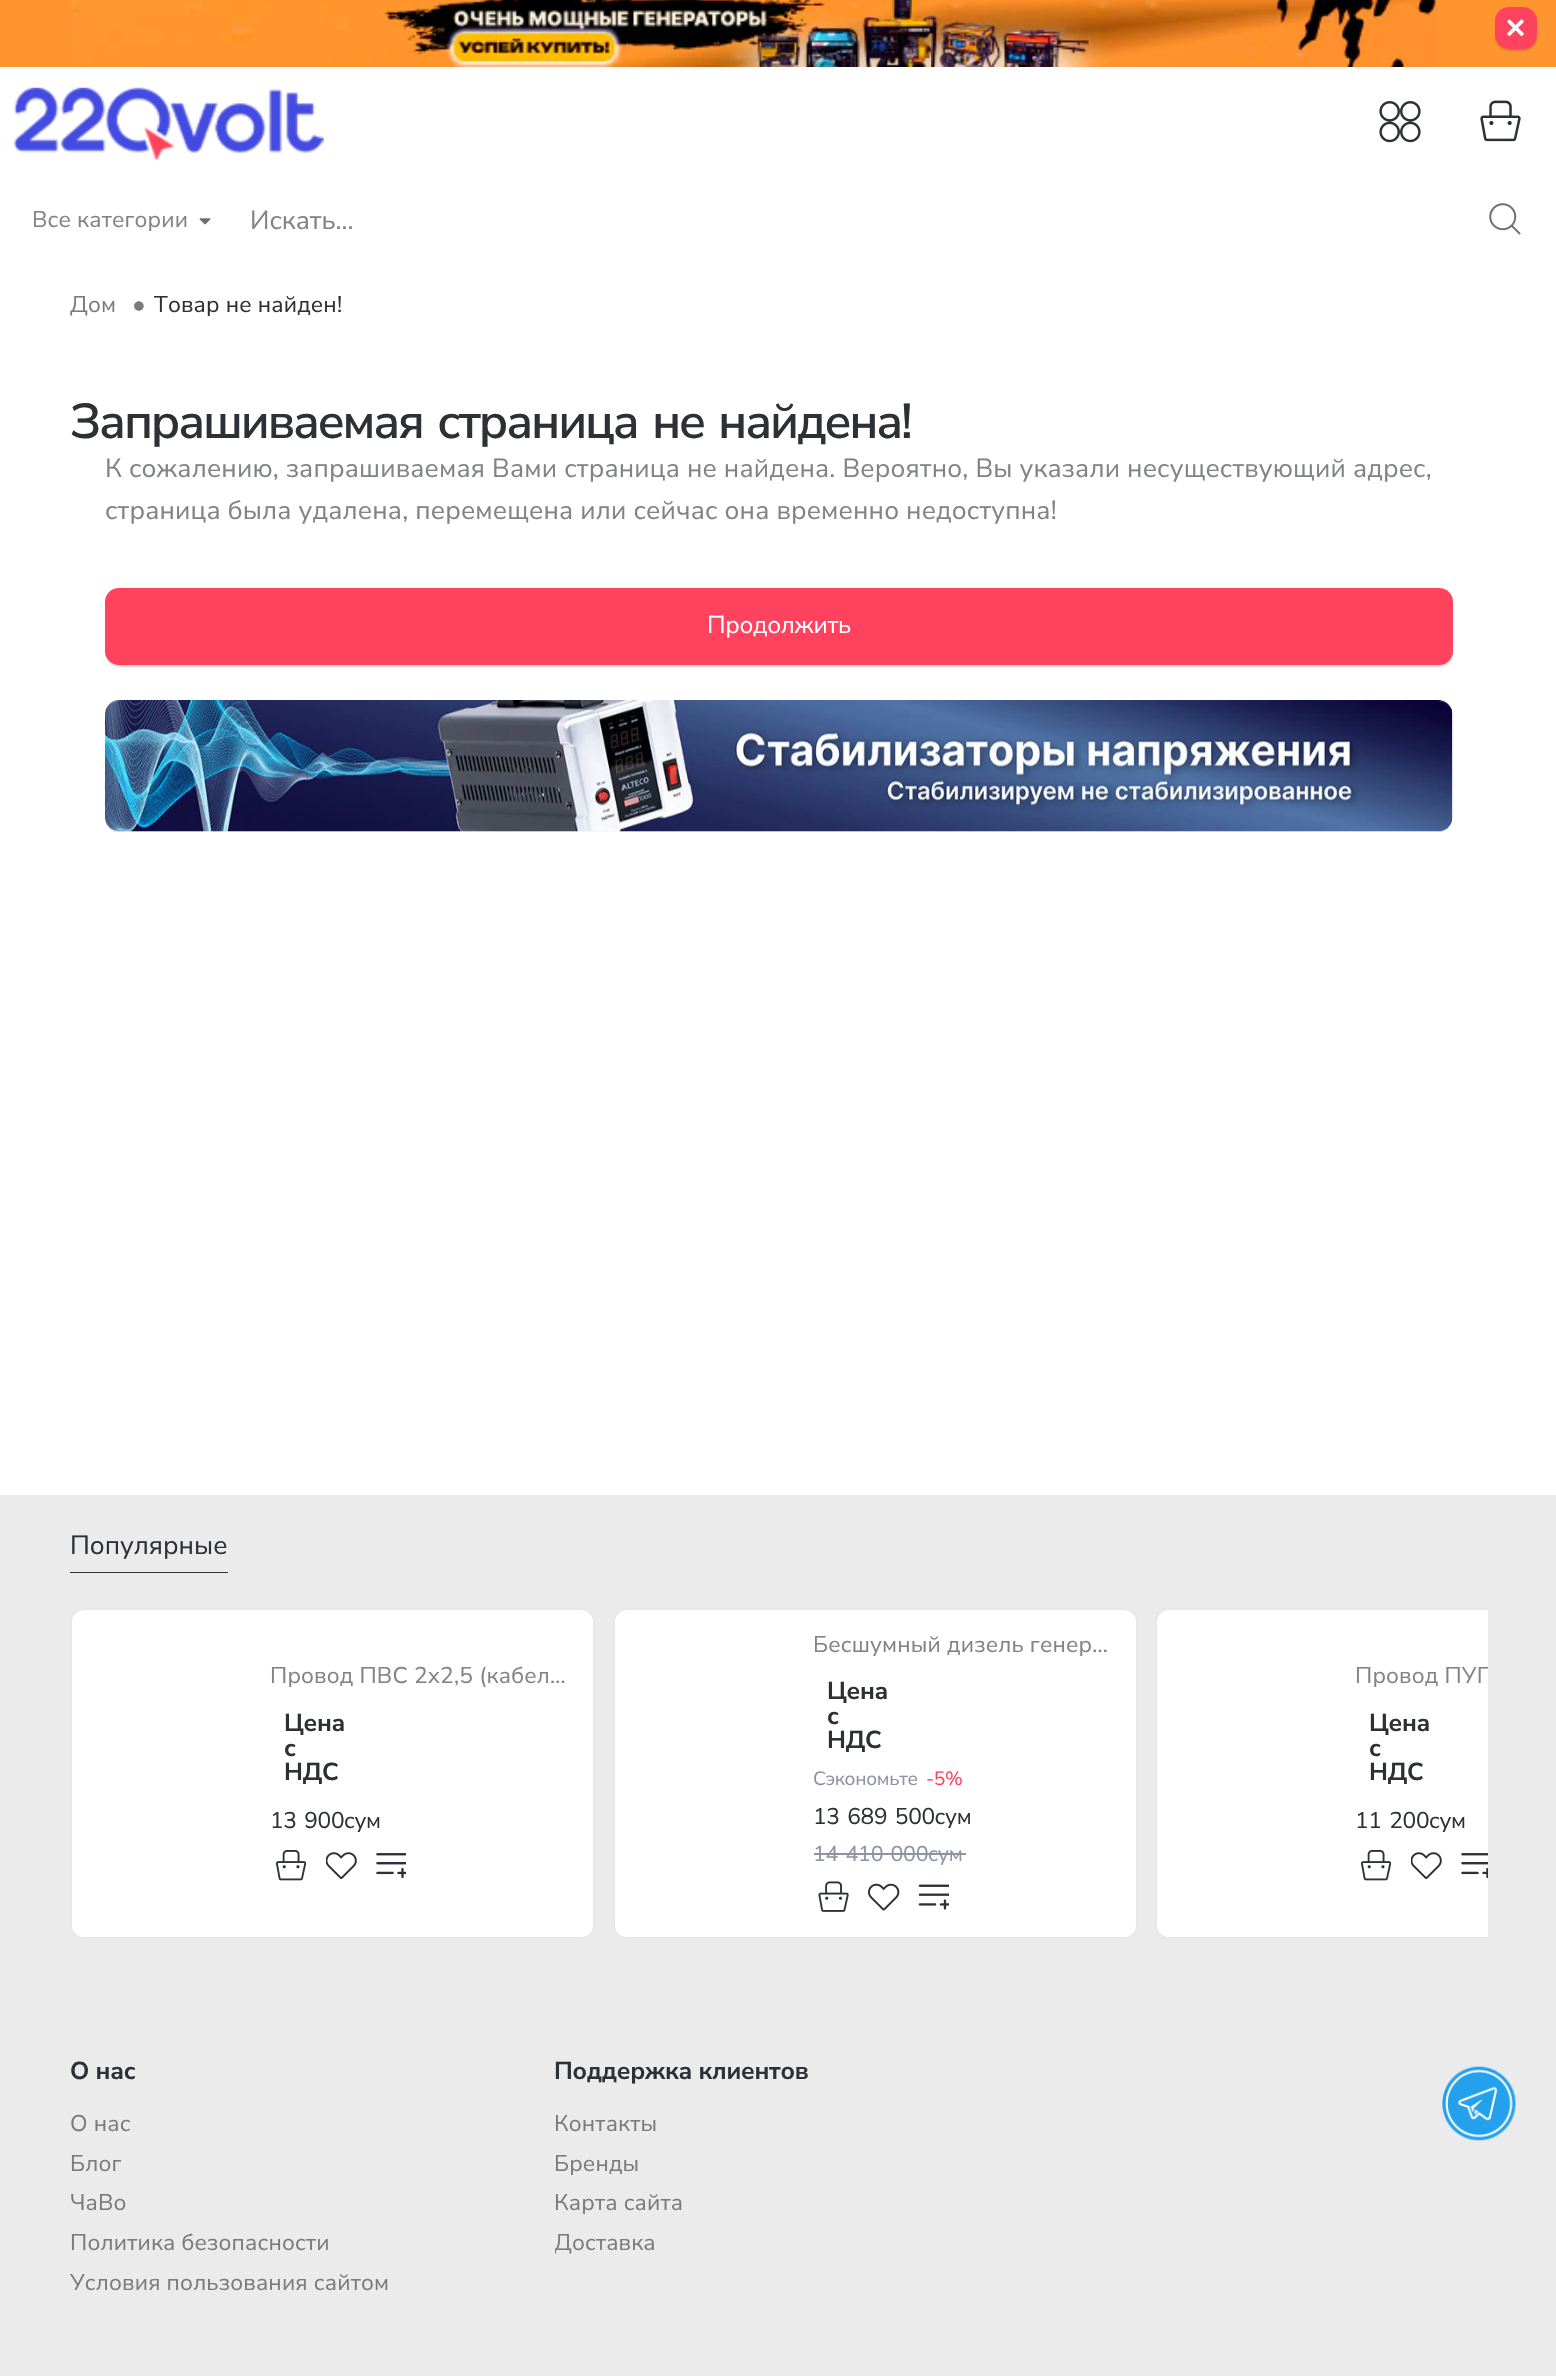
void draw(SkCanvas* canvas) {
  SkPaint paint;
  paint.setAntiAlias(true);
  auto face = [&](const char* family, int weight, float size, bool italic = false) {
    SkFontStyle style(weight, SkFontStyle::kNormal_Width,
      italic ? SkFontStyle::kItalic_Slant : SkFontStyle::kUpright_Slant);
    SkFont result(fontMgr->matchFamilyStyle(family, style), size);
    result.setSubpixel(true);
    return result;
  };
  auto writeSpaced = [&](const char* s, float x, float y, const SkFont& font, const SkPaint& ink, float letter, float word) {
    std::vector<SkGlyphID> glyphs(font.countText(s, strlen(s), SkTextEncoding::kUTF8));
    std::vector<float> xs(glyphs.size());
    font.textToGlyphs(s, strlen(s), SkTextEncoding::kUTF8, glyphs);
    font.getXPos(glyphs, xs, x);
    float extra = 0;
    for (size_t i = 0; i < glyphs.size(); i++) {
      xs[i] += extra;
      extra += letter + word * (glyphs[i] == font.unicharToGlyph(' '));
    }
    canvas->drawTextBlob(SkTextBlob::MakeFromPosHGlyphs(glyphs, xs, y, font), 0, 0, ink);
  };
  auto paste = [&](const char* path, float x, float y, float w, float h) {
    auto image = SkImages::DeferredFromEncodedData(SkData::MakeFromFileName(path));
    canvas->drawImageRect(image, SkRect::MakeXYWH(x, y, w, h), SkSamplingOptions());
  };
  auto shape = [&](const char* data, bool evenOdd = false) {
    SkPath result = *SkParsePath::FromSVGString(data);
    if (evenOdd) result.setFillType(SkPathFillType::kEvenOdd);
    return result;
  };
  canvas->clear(0xffffffff);
  paint.setColor(0xffff952f);
  canvas->drawRect(SkRect::MakeXYWH(0, 0, 1556, 67), paint);
  paste("img/1.png", 71, 0, 1366, 67);
  paint.setColor(0x1a000000);
  paint.setMaskFilter(SkMaskFilter::MakeBlur(kNormal_SkBlurStyle, 2));
  canvas->drawRoundRect(SkRect::MakeXYWH(1502, 16, 33, 33), 11, 11, paint);
  paint.setMaskFilter(nullptr);
  paint.setMaskFilter(SkMaskFilter::MakeBlur(kNormal_SkBlurStyle, 1));
  canvas->drawRoundRect(SkRect::MakeXYWH(1498, 11, 37, 38), 12, 12, paint);
  paint.setMaskFilter(nullptr);
  paint.setMaskFilter(SkMaskFilter::MakeBlur(kNormal_SkBlurStyle, 0.5f));
  canvas->drawRoundRect(SkRect::MakeXYWH(1495, 9, 42, 42), 14, 14, paint);
  paint.setMaskFilter(nullptr);
  paint.setColor(0xffff435e);
  canvas->drawRoundRect(SkRect::MakeXYWH(1495, 7, 42, 42), 14, 14, paint);
  paste("img/2.png", 1507, 19, 17, 17);
  paste("img/3.png", 14, 87, 310, 73);
  paste("img/4.png", 1379, 101, 42, 42);
  paste("img/5.png", 1480, 100, 41, 42);
  paste("img/6.png", 199, 218, 12, 7);
  paste("img/7.png", 1489, 203, 32, 32);
  paint.setColor(0x1a000000);
  paint.setMaskFilter(SkMaskFilter::MakeBlur(kNormal_SkBlurStyle, 2));
  canvas->drawRoundRect(SkRect::MakeXYWH(112, 597, 1339, 68), 11, 11, paint);
  paint.setMaskFilter(nullptr);
  paint.setMaskFilter(SkMaskFilter::MakeBlur(kNormal_SkBlurStyle, 1));
  canvas->drawRoundRect(SkRect::MakeXYWH(109, 592, 1342, 73), 12, 12, paint);
  paint.setMaskFilter(nullptr);
  paint.setMaskFilter(SkMaskFilter::MakeBlur(kNormal_SkBlurStyle, 0.5f));
  canvas->drawRoundRect(SkRect::MakeXYWH(105, 590, 1348, 77), 14, 14, paint);
  paint.setMaskFilter(nullptr);
  paint.setColor(0xffff435e);
  canvas->drawRoundRect(SkRect::MakeXYWH(105, 588, 1348, 77), 14, 14, paint);
  paste("img/8.png", 105, 700, 1348, 132);
  paste("img/9.png", 105, 700, 1348, 132);
  paint.setColor(0xffebebeb);
  canvas->drawRect(SkRect::MakeXYWH(0, 1495, 1556, 881), paint);
  paint.setColor(0xff2d3034);
  canvas->drawRect(SkRect::MakeXYWH(70, 1572, 158, 1), paint);
  paint.setColor(0xffffffff);
  canvas->drawRoundRect(SkRect::MakeXYWH(70, 1608, 525, 331), 14, 14, paint);
  paint.setStroke(true);
  paint.setStrokeWidth(2);
  paint.setColor(0x99d7d9e0);
  canvas->drawRoundRect(SkRect::MakeXYWH(71, 1609, 523, 329), 13, 13, paint);
  paste("img/10.png", 276, 1850, 30, 31);
  paste("img/11.png", 326, 1852, 31, 27);
  paste("img/12.png", 376, 1853, 30, 26);
  paint.setStroke(false);
  paint.setColor(0xffffffff);
  canvas->drawRoundRect(SkRect::MakeXYWH(613, 1608, 525, 331), 14, 14, paint);
  paint.setStroke(true);
  paint.setColor(0x99d7d9e0);
  canvas->drawRoundRect(SkRect::MakeXYWH(614, 1609, 523, 329), 13, 13, paint);
  paint.setStroke(false);
  paint.setColor(0xff8d93a5);
  canvas->drawRect(SkRect::MakeXYWH(814, 1853, 152, 2), paint);
  paste("img/13.png", 818, 1881, 31, 31);
  paste("img/14.png", 868, 1883, 32, 28);
  paste("img/15.png", 918, 1884, 31, 26);
  paint.setColor(0xffffffff);
  canvas->drawPath(shape("M1169 1608H1488V1939H1169C1161.5 1939 1155 1932.5 1155 1925V1622C1155 1614.5 1161.5 1608 1169 1608Z"), paint);
  canvas->save();
  canvas->clipRect(SkRect::MakeXYWH(70, 1608, 1418, 340));
  paint.setStroke(true);
  paint.setColor(0x99d7d9e0);
  canvas->drawRoundRect(SkRect::MakeXYWH(1156, 1609, 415, 329), 13, 13, paint);
  canvas->restore();
  paste("img/10.png", 1361, 1850, 30, 31);
  paste("img/11.png", 1411, 1852, 31, 27);
  paste("img/16.png", 1461, 1853, 27, 26);
  paste("img/17.png", 1442, 2066, 74, 75);
  auto f0 = face("Nunito Sans", 400, 22.75f);
  paint.setStroke(false);
  paint.setColor(0xff818385);
  writeSpaced("Все категории", 32, 227, f0, paint, 0.18f, 0);
  auto f1 = face("Nunito Sans", 400, 26.25f);
  canvas->drawString("Искать...", 250, 229, f1, paint);
  paint.setColor(0xff797b7d);
  writeSpaced("Дом", 70, 312, f0, paint, 0.18f, 0);
  writeSpaced("•", 132, 313, f1, paint, 0.18f, 0);
  paint.setColor(0xff2d3034);
  writeSpaced("Товар не найден!", 154, 312, f0, paint, 0.18f, 0);
  auto f2 = face("Nunito Sans", 600, 49);
  writeSpaced("Запрашиваемая страница не найдена!", 70, 438, f2, paint, -2.1f, 3.5f);
  paint.setColor(0xff818385);
  writeSpaced("К сожалению, запрашиваемая Вами страница не найдена. Вероятно, Вы указали несуществующий адрес,", 105, 477, f1, paint, 0.18f, 0);
  writeSpaced("страница была удалена, перемещена или сейчас она временно недоступна!", 105, 519, f1, paint, 0.18f, 0);
  auto f3 = face("Nunito Sans", 400, 24.5f);
  paint.setColor(0xffffffff);
  writeSpaced("Продолжить", 707, 633, f3, paint, -0.3f, 0);
  paint.setColor(0xff2d3034);
  canvas->drawString("Популярные", 70, 1554, f1, paint);
  paint.setColor(0xff818385);
  writeSpaced("Провод ПВС 2х2,5 (кабел…", 270, 1683, f0, paint, 0.18f, 0);
  auto f4 = face("Nunito Sans", 700, 24.5f);
  paint.setColor(0xff2d3034);
  {
    const struct { const char* s; float x, y; } items[] = {
      {"Цена", 284, 1731},
      {"с", 284, 1756},
      {"НДС", 284, 1780},
    };
    for (auto [s, x, y] : items) {
      writeSpaced(s, x, y, f4, paint, -0.3f, 0);
    }
  }
  writeSpaced("13 900 сум", 270, 1828, f0, paint, -0.3f, 2);
  paint.setColor(0xff818385);
  writeSpaced("Бесшумный дизель генер…", 813, 1652, f0, paint, 0.18f, 0);
  paint.setColor(0xff2d3034);
  {
    const struct { const char* s; float x, y; } items[] = {
      {"Цена", 827, 1699},
      {"с", 827, 1724},
      {"НДС", 827, 1748},
    };
    for (auto [s, x, y] : items) {
      writeSpaced(s, x, y, f4, paint, -0.3f, 0);
    }
  }
  auto f5 = face("Nunito Sans", 400, 19.25f);
  paint.setColor(0xff8d93a5);
  writeSpaced("Сэкономьте", 813, 1785, f5, paint, -0.3f, 0);
  paint.setColor(0xffff435e);
  writeSpaced("-5%", 926, 1785, f5, paint, -0.3f, 0);
  paint.setColor(0xff2d3034);
  writeSpaced("13 689 500 сум", 813, 1824, f0, paint, -0.3f, 2);
  auto f6 = face("Nunito Sans", 400, 21.5f);
  paint.setColor(0xff8d93a5);
  writeSpaced("14 410 000 сум", 813, 1861, f6, paint, -0.3f, 2);
  canvas->save();
  canvas->clipRect(SkRect::MakeXYWH(1356, 1663, 132, 29));
  paint.setColor(0xff818385);
  writeSpaced("Провод ПУГ", 1355, 1683, f0, paint, 0.18f, 0);
  canvas->restore();
  paint.setColor(0xff2d3034);
  {
    const struct { const char* s; float x, y; } items[] = {
      {"Цена", 1369, 1731},
      {"с", 1369, 1756},
      {"НДС", 1369, 1780},
    };
    for (auto [s, x, y] : items) {
      writeSpaced(s, x, y, f4, paint, -0.3f, 0);
    }
  }
  writeSpaced("11 200 сум", 1355, 1828, f0, paint, -0.3f, 2);
  writeSpaced("О нас", 70, 2079, f4, paint, -0.2f, 0);
  paint.setColor(0xff797b7d);
  {
    const struct { const char* s; float x, y; } items[] = {
      {"О нас", 70, 2131},
      {"Блог", 70, 2171},
      {"ЧаВо", 70, 2210},
      {"Политика безопасности", 70, 2250},
      {"Условия пользования сайтом", 70, 2290},
    };
    for (auto [s, x, y] : items) {
      writeSpaced(s, x, y, f0, paint, 0.18f, 0);
    }
  }
  paint.setColor(0xff2d3034);
  writeSpaced("Поддержка клиентов", 554, 2079, f4, paint, -0.2f, 0);
  paint.setColor(0xff797b7d);
  {
    const struct { const char* s; float x, y; } items[] = {
      {"Контакты", 554, 2131},
      {"Бренды", 554, 2171},
      {"Карта сайта", 554, 2210},
    };
    for (auto [s, x, y] : items) {
      writeSpaced(s, x, y, f0, paint, 0.18f, 0);
    }
  }
  canvas->save();
  canvas->clipRect(SkRect::MakeXYWH(555, 2231, 101, 27));
  writeSpaced("Доставка", 554, 2250, f0, paint, 0.18f, 0);
  canvas->restore();
}
